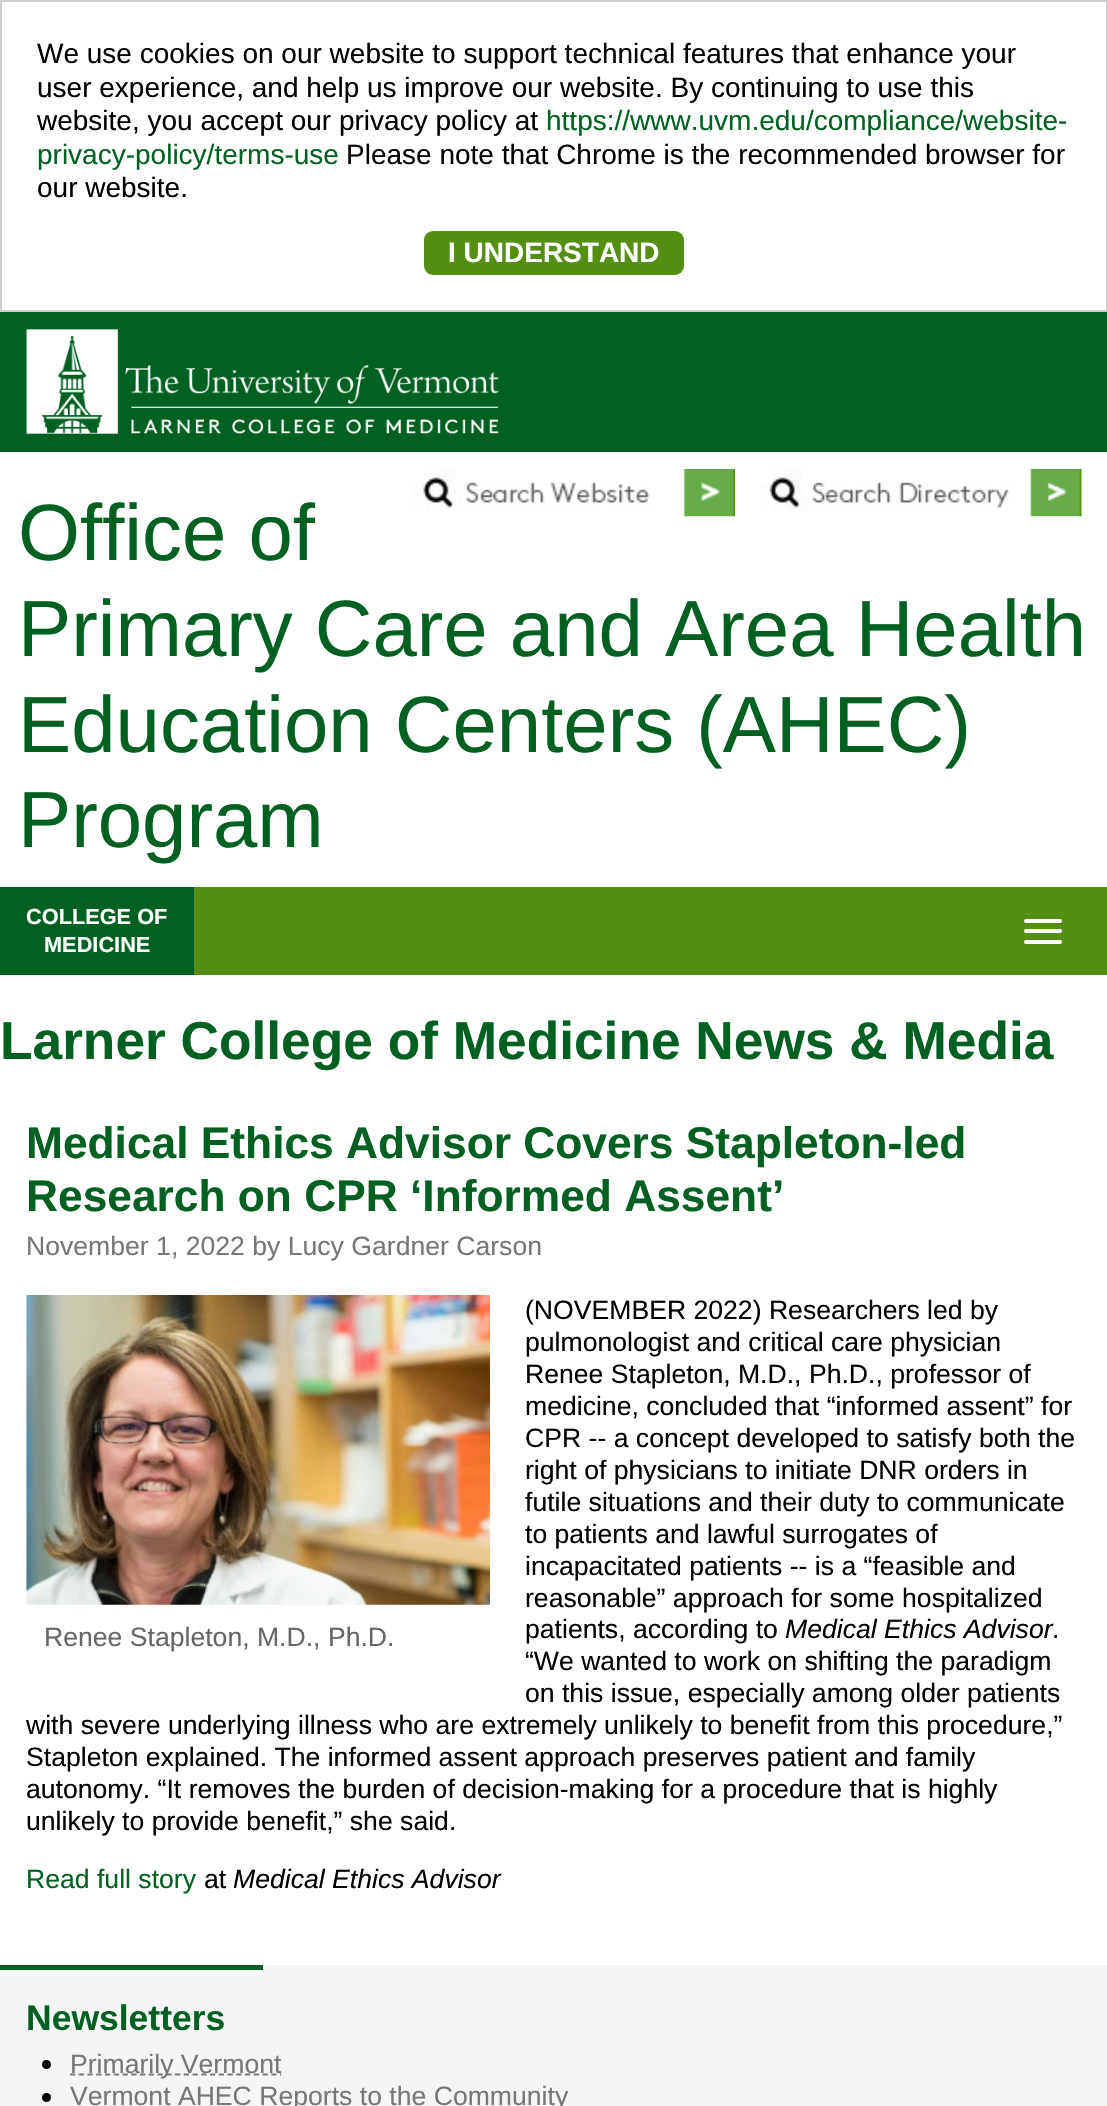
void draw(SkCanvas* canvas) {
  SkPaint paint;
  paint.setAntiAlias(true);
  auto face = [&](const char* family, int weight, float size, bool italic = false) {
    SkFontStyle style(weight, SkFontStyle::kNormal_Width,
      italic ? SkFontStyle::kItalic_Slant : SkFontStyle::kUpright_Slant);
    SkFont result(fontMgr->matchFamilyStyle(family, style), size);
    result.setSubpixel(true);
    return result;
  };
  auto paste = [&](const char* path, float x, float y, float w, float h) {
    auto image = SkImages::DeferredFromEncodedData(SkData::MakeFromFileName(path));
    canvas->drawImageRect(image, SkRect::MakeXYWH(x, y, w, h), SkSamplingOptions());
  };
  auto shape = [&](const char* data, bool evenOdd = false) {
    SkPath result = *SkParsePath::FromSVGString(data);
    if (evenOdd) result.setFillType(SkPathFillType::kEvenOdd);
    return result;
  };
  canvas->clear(0xffffffff);
  paint.setStroke(true);
  paint.setStrokeWidth(2);
  paint.setColor(0xffcccccc);
  canvas->drawRect(SkRect::MakeXYWH(1, 1, 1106, 310), paint);
  paint.setStroke(false);
  paint.setColor(0xff558e13);
  canvas->drawRoundRect(SkRect::MakeXYWH(424, 231, 260, 44), 9, 9, paint);
  paint.setColor(0xff006021);
  canvas->drawRect(SkRect::MakeXYWH(0, 312, 1107, 140), paint);
  paste("img/1.png", 26, 329, 473, 105);
  paste("img/2.png", 413, 469, 322, 48);
  paste("img/3.png", 760, 469, 322, 48);
  paint.setColor(0xff558e13);
  canvas->drawRect(SkRect::MakeXYWH(194, 887, 913, 88), paint);
  paint.setColor(0xff006021);
  canvas->drawRect(SkRect::MakeXYWH(0, 887, 194, 88), paint);
  paint.setColor(0xffffffff);
  canvas->drawRoundRect(SkRect::MakeXYWH(1024, 919, 38, 4), 2, 2, paint);
  canvas->drawRoundRect(SkRect::MakeXYWH(1024, 929, 38, 4), 2, 2, paint);
  canvas->drawRoundRect(SkRect::MakeXYWH(1024, 940, 38, 4), 2, 2, paint);
  paste("img/4.png", 26, 1295, 464, 310);
  paint.setColor(0xfff5f5f5);
  canvas->drawRect(SkRect::MakeXYWH(0, 1965, 1107, 141), paint);
  paint.setColor(0xff006021);
  canvas->drawRect(SkRect::MakeXYWH(0, 1965, 263, 5), paint);
  paint.setColor(0xff000000);
  canvas->drawCircle(46.5f, 2064.5f, 4.5f, paint);
  paint.setStroke(true);
  paint.setStrokeWidth(1.8f);
  paint.setColor(0xff777777);
  paint.setPathEffect(SkDashPathEffect::Make({{5.25f, 3.5f}}, 0));
  canvas->drawPath(shape("M70 2074.5H281"), paint);
  paint.setPathEffect(nullptr);
  paint.setStroke(false);
  paint.setColor(0xff000000);
  canvas->drawCircle(46.5f, 2097.5f, 4.5f, paint);
  auto f0 = face("Liberation Sans", 400, 28);
  {
    const struct { const char* s; float x, y; } items[] = {
      {"We use cookies on our website to support technical features that enhance your", 37, 63},
      {"user experience, and help us improve our website. By continuing to use this", 37, 97},
      {"website, you accept our privacy policy at", 37, 130},
    };
    for (auto [s, x, y] : items) {
      canvas->drawString(s, x, y, f0, paint);
    }
  }
  paint.setColor(0xff006021);
  canvas->drawString("https://www.uvm.edu/compliance/website-", 546, 130, f0, paint);
  canvas->drawString("privacy-policy/terms-use", 37, 164, f0, paint);
  paint.setColor(0xff000000);
  canvas->drawString("Please note that Chrome is the recommended browser for", 346, 164, f0, paint);
  canvas->drawString("our website.", 37, 197, f0, paint);
  auto f1 = face("Liberation Sans", 700, 28);
  paint.setColor(0xffffffff);
  canvas->drawString("I UNDERSTAND", 448, 262, f1, paint);
  auto f2 = face("Liberation Sans", 400, 79.75f);
  paint.setColor(0xff006021);
  {
    const struct { const char* s; float x, y; } items[] = {
      {"Office of", 18, 560},
      {"Primary Care and Area Health", 18, 656},
      {"Education Centers (AHEC)", 18, 752},
      {"Program", 18, 847},
    };
    for (auto [s, x, y] : items) {
      canvas->drawString(s, x, y, f2, paint);
    }
  }
  auto f3 = face("Liberation Sans", 700, 21.75f);
  paint.setColor(0xffffffff);
  canvas->drawString("COLLEGE OF", 26, 924, f3, paint);
  canvas->drawString("MEDICINE", 44, 952, f3, paint);
  auto f4 = face("Liberation Sans", 700, 53.25f);
  paint.setColor(0xff006021);
  canvas->drawString("Larner College of Medicine News & Media", 0, 1059, f4, paint);
  auto f5 = face("Liberation Sans", 700, 44.3f);
  canvas->drawString("Medical Ethics Advisor Covers Stapleton-led", 26, 1158, f5, paint);
  canvas->drawString("Research on CPR ‘Informed Assent’", 26, 1211, f5, paint);
  auto f6 = face("Liberation Sans", 400, 26.6f);
  paint.setColor(0xff777777);
  canvas->drawString("November 1, 2022 by Lucy Gardner Carson", 26, 1255, f6, paint);
  paint.setColor(0xff000000);
  {
    const struct { const char* s; float x, y; } items[] = {
      {"(NOVEMBER 2022) Researchers led by", 525, 1319},
      {"pulmonologist and critical care physician", 525, 1351},
      {"Renee Stapleton, M.D., Ph.D., professor of", 525, 1383},
      {"medicine, concluded that “informed assent” for", 525, 1415},
      {"CPR -- a concept developed to satisfy both the", 525, 1447},
      {"right of physicians to initiate DNR orders in", 525, 1479},
      {"futile situations and their duty to communicate", 525, 1511},
      {"to patients and lawful surrogates of", 525, 1543},
      {"incapacitated patients -- is a “feasible and", 525, 1575},
      {"reasonable” approach for some hospitalized", 525, 1607},
      {"patients, according to", 525, 1638},
    };
    for (auto [s, x, y] : items) {
      canvas->drawString(s, x, y, f6, paint);
    }
  }
  auto f7 = face("Liberation Sans", 400, 26.6f, true);
  canvas->drawString("Medical Ethics Advisor", 785, 1638, f7, paint);
  {
    const struct { const char* s; float x, y; } items[] = {
      {".", 1052, 1638},
      {"“We wanted to work on shifting the paradigm", 525, 1670},
      {"on this issue, especially among older patients", 525, 1702},
      {"with severe underlying illness who are extremely unlikely to benefit from this procedure,”", 26, 1734},
      {"Stapleton explained. The informed assent approach preserves patient and family", 26, 1766},
      {"autonomy. “It removes the burden of decision-making for a procedure that is highly", 26, 1798},
      {"unlikely to provide benefit,” she said.", 26, 1830},
    };
    for (auto [s, x, y] : items) {
      canvas->drawString(s, x, y, f6, paint);
    }
  }
  paint.setColor(0xff666666);
  canvas->drawString("Renee Stapleton, M.D., Ph.D.", 44, 1646, f6, paint);
  paint.setColor(0xff006021);
  canvas->drawString("Read full story", 26, 1888, f6, paint);
  paint.setColor(0xff000000);
  canvas->drawString("at", 204, 1888, f6, paint);
  canvas->drawString("Medical Ethics Advisor", 233, 1888, f7, paint);
  auto f8 = face("Liberation Sans", 700, 35.5f);
  paint.setColor(0xff006021);
  canvas->drawString("Newsletters", 26, 2030, f8, paint);
  paint.setColor(0xff777777);
  canvas->drawString("Primarily Vermont", 70, 2073, f6, paint);
  canvas->drawString("Vermont AHEC Reports to the Community", 70, 2105, f6, paint);
}
